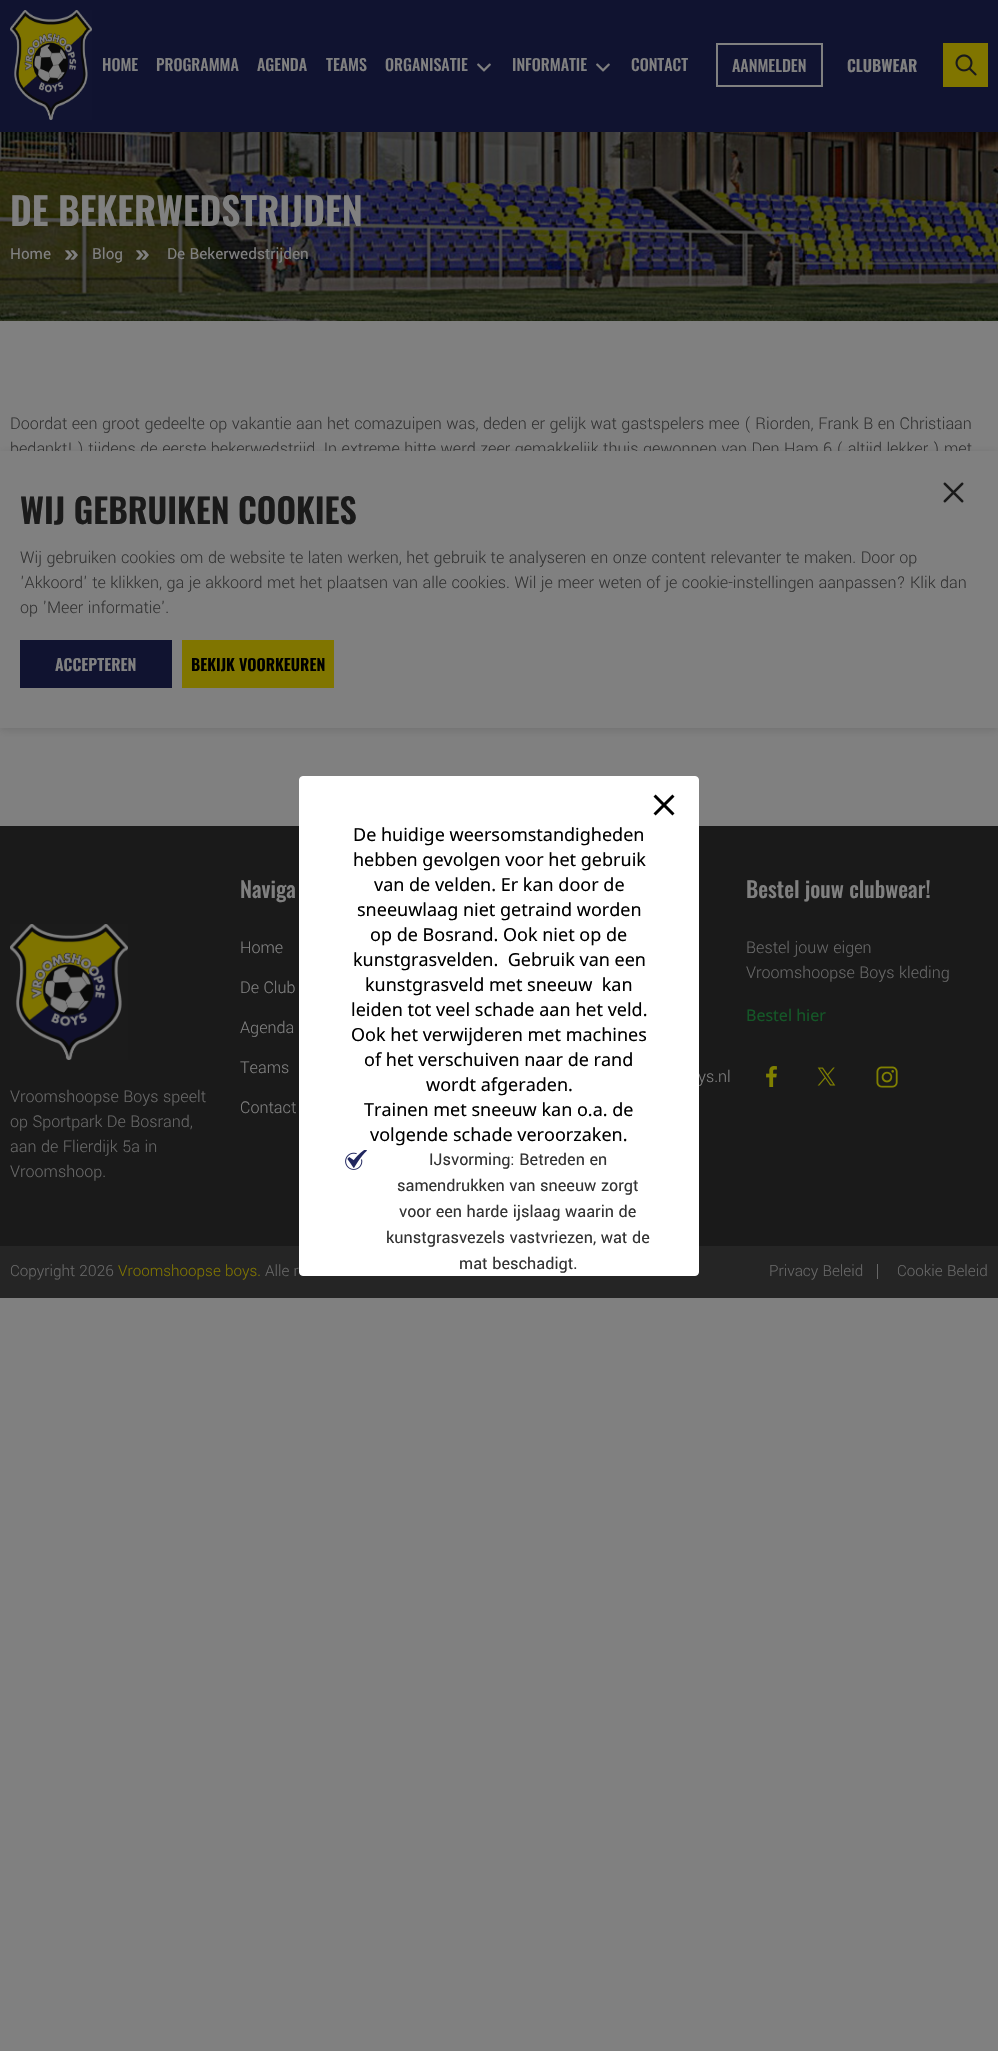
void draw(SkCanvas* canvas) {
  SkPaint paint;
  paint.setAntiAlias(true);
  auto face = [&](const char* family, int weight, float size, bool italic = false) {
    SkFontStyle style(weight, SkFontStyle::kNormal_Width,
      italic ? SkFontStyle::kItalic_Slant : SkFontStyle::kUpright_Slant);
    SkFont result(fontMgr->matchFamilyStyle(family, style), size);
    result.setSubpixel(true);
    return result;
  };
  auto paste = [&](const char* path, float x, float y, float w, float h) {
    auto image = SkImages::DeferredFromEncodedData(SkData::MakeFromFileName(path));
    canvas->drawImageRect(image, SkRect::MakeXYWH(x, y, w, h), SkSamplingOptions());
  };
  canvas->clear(0xff808080);
  paint.setColor(0xff101330);
  canvas->drawRect(SkRect::MakeXYWH(0, 0, 998, 132), paint);
  paste("img/1.png", 10, 10, 82, 110);
  paste("img/2.png", 477, 63, 14, 9);
  paste("img/2.png", 596, 63, 14, 9);
  paint.setStroke(true);
  paint.setStrokeWidth(2);
  paint.setColor(0xff808080);
  canvas->drawRect(SkRect::MakeXYWH(717, 44, 105, 42), paint);
  paint.setStroke(false);
  paint.setColor(0xff807500);
  canvas->drawRect(SkRect::MakeXYWH(943, 43, 45, 44), paint);
  paste("img/3.png", 955, 54, 22, 22);
  paste("img/4.png", 0, 132, 998, 189);
  paste("img/5.png", 65, 250, 13, 10);
  paste("img/6.png", 136, 250, 13, 10);
  paint.setColor(0x33323232);
  paint.setMaskFilter(SkMaskFilter::MakeBlur(kNormal_SkBlurStyle, 4));
  canvas->drawRect(SkRect::MakeXYWH(0, 453, 998, 277), paint);
  paint.setMaskFilter(nullptr);
  paint.setColor(0xff1a1a1a);
  canvas->drawRect(SkRect::MakeXYWH(0, 826, 998, 420), paint);
  paste("img/10.png", 766, 1066, 11, 21);
  paste("img/11.png", 817, 1067, 19, 19);
  paste("img/12.png", 876, 1066, 22, 22);
  paste("img/13.png", 10, 924, 118, 136);
  paint.setColor(0xff252525);
  canvas->drawRect(SkRect::MakeXYWH(0, 1246, 998, 52), paint);
  paint.setColor(0xff676767);
  canvas->drawRect(SkRect::MakeXYWH(877, 1264, 1, 15), paint);
  auto f0 = face("Oswald", 500, 16);
  paint.setColor(0xff808080);
  {
    const struct { const char* s; float x, y; } items[] = {
      {"HOME", 102, 71},
      {"PROGRAMMA", 156, 71},
      {"AGENDA", 257, 71},
      {"TEAMS", 326, 71},
      {"ORGANISATIE", 385, 71},
      {"INFORMATIE", 512, 71},
      {"CONTACT", 631, 71},
      {"AANMELDEN", 732, 72},
    };
    for (auto [s, x, y] : items) {
      canvas->drawString(s, x, y, f0, paint);
    }
  }
  auto f1 = face("Oswald", 600, 16);
  canvas->drawString("CLUBWEAR", 847, 72, f1, paint);
  auto f2 = face("Oswald", 600, 38);
  canvas->drawString("DE BEKERWEDSTRIJDEN", 10, 226, f2, paint);
  auto f3 = face("Yantramanav", 400, 17);
  {
    const struct { const char* s; float x, y; } items[] = {
      {"Home", 10, 259},
      {"Blog", 92, 259},
      {"De Bekerwedstrijden", 167, 259},
    };
    for (auto [s, x, y] : items) {
      canvas->drawString(s, x, y, f3, paint);
    }
  }
  auto f4 = face("Yantramanav", 300, 18);
  paint.setColor(0xff333333);
  canvas->drawString("Doordat een groot gedeelte op vakantie aan het comazuipen was, deden er gelijk wat gastspelers mee ( Riorden, Frank B en Christiaan", 10, 429, f4, paint);
  canvas->drawString("bedankt! ) tijdens de eerste bekerwedstrijd. In extreme hitte werd zeer gemakkelijk thuis gewonnen van Den Ham 6 ( altijd lekker ) met", 10, 454, f4, paint);
  paint.setColor(0xff808080);
  canvas->drawRect(SkRect::MakeXYWH(0, 451, 998, 277), paint);
  paste("img/7.png", 943, 482, 21, 21);
  auto f5 = face("Oswald", 600, 34);
  paint.setColor(0xff1a1a1a);
  canvas->drawString("WIJ GEBRUIKEN COOKIES", 20, 524, f5, paint);
  paint.setColor(0xff333333);
  {
    const struct { const char* s; float x, y; } items[] = {
      {"Wij gebruiken cookies om de website te laten werken, het gebruik te analyseren en onze content relevanter te maken. Door op", 20, 563},
      {"'Akkoord' te klikken, ga je akkoord met het plaatsen van alle cookies. Wil je meer weten of je cookie-instellingen aanpassen? Klik dan", 20, 588},
      {"op 'Meer informatie'.", 20, 613},
    };
    for (auto [s, x, y] : items) {
      canvas->drawString(s, x, y, f4, paint);
    }
  }
  paint.setColor(0xff101330);
  canvas->drawRect(SkRect::MakeXYWH(20, 640, 152, 48), paint);
  paint.setColor(0xff808080);
  canvas->drawString("ACCEPTEREN", 55, 671, f1, paint);
  paint.setColor(0xff807500);
  canvas->drawRect(SkRect::MakeXYWH(182, 640, 152, 48), paint);
  paint.setColor(0xff000000);
  canvas->drawString("BEKIJK VOORKEUREN", 191, 671, f1, paint);
  auto f6 = face("Oswald", 500, 22);
  paint.setColor(0xff808080);
  canvas->drawString("Naviga", 240, 898, f6, paint);
  {
    const struct { const char* s; float x, y; } items[] = {
      {"Home", 240, 953},
      {"De Club", 240, 993},
      {"Agenda", 240, 1033},
      {"Teams", 240, 1073},
      {"Contact", 240, 1113},
    };
    for (auto [s, x, y] : items) {
      canvas->drawString(s, x, y, f4, paint);
    }
  }
  canvas->drawString("Bestel jouw clubwear!", 746, 898, f6, paint);
  paint.setColor(0xff676767);
  canvas->drawString("Bestel jouw eigen", 746, 953, f4, paint);
  canvas->drawString("Vroomshoopse Boys kleding", 746, 978, f4, paint);
  auto f7 = face("Noto Sans", 400, 16);
  paint.setColor(0xff145727);
  canvas->drawString("Bestel hier", 746, 1021, f7, paint);
  paint.setColor(0xff808080);
  canvas->drawString("ys.nl", 698, 1082, f4, paint);
  paint.setColor(0xffffffff);
  canvas->drawRoundRect(SkRect::MakeXYWH(299.5f, 776.5f, 399, 499), 3.5f, 3.5f, paint);
  paint.setStroke(true);
  paint.setStrokeWidth(1);
  canvas->drawRoundRect(SkRect::MakeXYWH(299.5f, 776.5f, 399, 499), 3.5f, 3.5f, paint);
  paste("img/8.png", 653, 794, 22, 22);
  auto f8 = face("Yantramanav", 400, 18);
  paint.setStroke(false);
  paint.setColor(0xff333333);
  {
    const struct { const char* s; float x, y; } items[] = {
      {"mat beschadigt.", 459, 1269},
      {"kunstgrasvezels vastvriezen, wat de", 386, 1243},
      {"voor een harde ijslaag waarin de", 399, 1217},
      {"samendrukken van sneeuw zorgt", 397, 1191},
      {"IJsvorming: Betreden en", 429, 1165},
    };
    for (auto [s, x, y] : items) {
      canvas->drawString(s, x, y, f8, paint);
    }
  }
  auto f9 = face("Noto Sans", 400, 18);
  paint.setColor(0xff000000);
  {
    const struct { const char* s; float x, y; } items[] = {
      {"volgende schade veroorzaken.", 370, 1141},
      {"Trainen met sneeuw kan o.a. de", 364, 1116},
      {"wordt afgeraden.", 426, 1091},
      {"of het verschuiven naar de rand", 364, 1066},
      {"Ook het verwijderen met machines", 351, 1041},
      {"leiden tot veel schade aan het veld.", 351, 1016},
      {"kunstgrasveld met sneeuw  kan", 365, 991},
      {"kunstgrasvelden.  Gebruik van een", 353, 966},
      {"op de Bosrand. Ook niet op de", 370, 941},
      {"sneeuwlaag niet getraind worden", 357, 916},
      {"van de velden. Er kan door de", 374, 891},
      {"hebben gevolgen voor het gebruik", 353, 866},
      {"De huidige weersomstandigheden", 353, 841},
    };
    for (auto [s, x, y] : items) {
      canvas->drawString(s, x, y, f9, paint);
    }
  }
  paste("img/9.png", 345, 1150, 22, 20);
  paint.setColor(0xff676767);
  {
    const struct { const char* s; float x, y; } items[] = {
      {"Vroomshoopse Boys speelt", 10, 1102},
      {"op Sportpark De Bosrand,", 10, 1127},
      {"aan de Flierdijk 5a in", 10, 1152},
      {"Vroomshoop.", 10, 1177},
    };
    for (auto [s, x, y] : items) {
      canvas->drawString(s, x, y, f4, paint);
    }
  }
  auto f10 = face("Yantramanav", 300, 17);
  canvas->drawString("Copyright 2026", 10, 1276, f10, paint);
  paint.setColor(0xff807500);
  canvas->drawString("Vroomshoopse boys.", 118, 1276, f10, paint);
  paint.setColor(0xff676767);
  {
    const struct { const char* s; float x, y; } items[] = {
      {"Alle r", 265, 1276},
      {"Privacy Beleid", 769, 1276},
      {"Cookie Beleid", 897, 1276},
    };
    for (auto [s, x, y] : items) {
      canvas->drawString(s, x, y, f10, paint);
    }
  }
}
